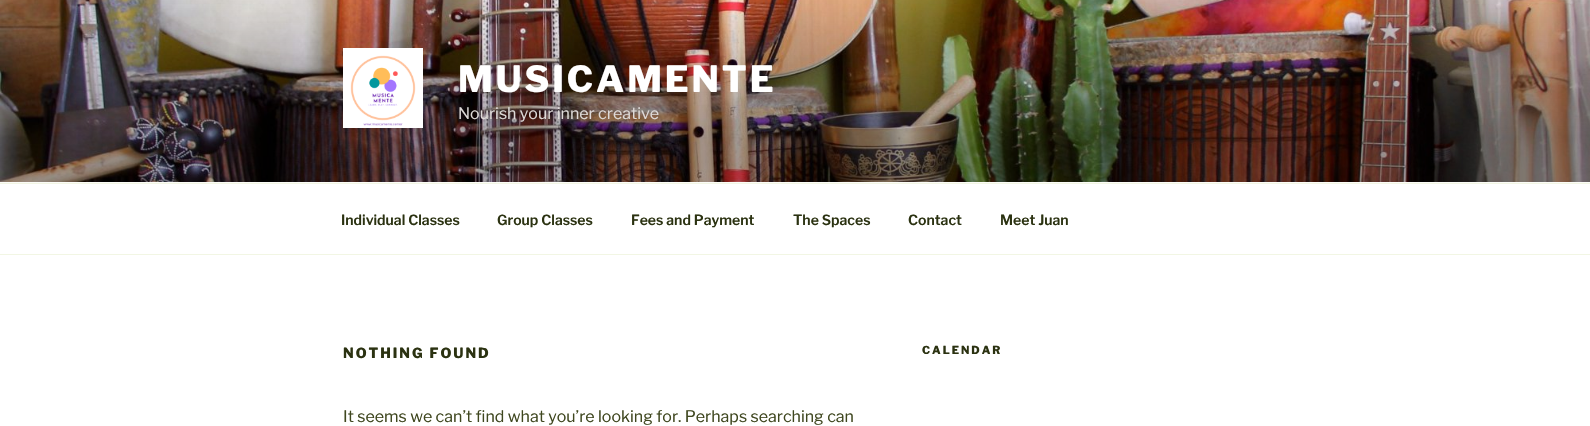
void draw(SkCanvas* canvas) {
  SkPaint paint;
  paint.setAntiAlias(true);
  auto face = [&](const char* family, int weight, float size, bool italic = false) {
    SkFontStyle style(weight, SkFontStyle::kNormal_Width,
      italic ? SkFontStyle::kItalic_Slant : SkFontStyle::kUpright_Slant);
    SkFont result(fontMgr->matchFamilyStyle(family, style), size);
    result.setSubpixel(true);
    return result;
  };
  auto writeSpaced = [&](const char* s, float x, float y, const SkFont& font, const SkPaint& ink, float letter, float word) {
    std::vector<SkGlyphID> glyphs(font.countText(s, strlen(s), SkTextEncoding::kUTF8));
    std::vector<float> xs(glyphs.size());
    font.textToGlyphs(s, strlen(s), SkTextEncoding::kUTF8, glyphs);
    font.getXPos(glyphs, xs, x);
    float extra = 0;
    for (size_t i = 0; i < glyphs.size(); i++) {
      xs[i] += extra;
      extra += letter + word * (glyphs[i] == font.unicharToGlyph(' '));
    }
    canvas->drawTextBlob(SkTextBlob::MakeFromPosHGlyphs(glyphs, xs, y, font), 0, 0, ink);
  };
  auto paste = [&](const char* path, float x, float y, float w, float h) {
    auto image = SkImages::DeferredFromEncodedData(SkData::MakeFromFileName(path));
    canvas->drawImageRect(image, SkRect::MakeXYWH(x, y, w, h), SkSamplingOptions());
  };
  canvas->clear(0xffffffff);
  paint.setColor(0xfffbfcf7);
  canvas->drawRect(SkRect::MakeXYWH(0, 182, 1590, 1), paint);
  paste("img/1.png", 0, 0, 1590, 182);
  paste("img/2.png", 343, 48, 80, 80);
  paint.setColor(0xfff2f6e4);
  canvas->drawRect(SkRect::MakeXYWH(0, 183, 1590, 1), paint);
  canvas->drawRect(SkRect::MakeXYWH(0, 254, 1590, 1), paint);
  auto f0 = face("Libre Franklin", 800, 36);
  paint.setColor(0xffffffff);
  writeSpaced("MUSICAMENTE", 458, 92, f0, paint, 2.9f, 0);
  auto f1 = face("Libre Franklin", 400, 16);
  paint.setColor(0xffdedad8);
  canvas->drawString("Nourish your inner creative", 458, 119, f1, paint);
  auto f2 = face("Libre Franklin", 600, 14);
  paint.setColor(0xff2b3211);
  {
    const struct { const char* s; float x, y; } items[] = {
      {"Individual Classes", 341, 225},
      {"Group Classes", 497, 225},
      {"Fees and Payment", 631, 225},
      {"The Spaces", 793, 225},
      {"Contact", 908, 225},
      {"Meet Juan", 1000, 225},
    };
    for (auto [s, x, y] : items) {
      canvas->drawString(s, x, y, f2, paint);
    }
  }
  auto f3 = face("Libre Franklin", 800, 14);
  writeSpaced("NOTHING FOUND", 343, 358, f3, paint, 2, 0);
  paint.setColor(0xff3f471f);
  canvas->drawString("It seems we can’t find what you’re looking for. Perhaps searching can", 343, 422, f1, paint);
  auto f4 = face("Libre Franklin", 800, 11);
  paint.setColor(0xff2b3211);
  writeSpaced("CALENDAR", 922, 354, f4, paint, 2, 0);
}
